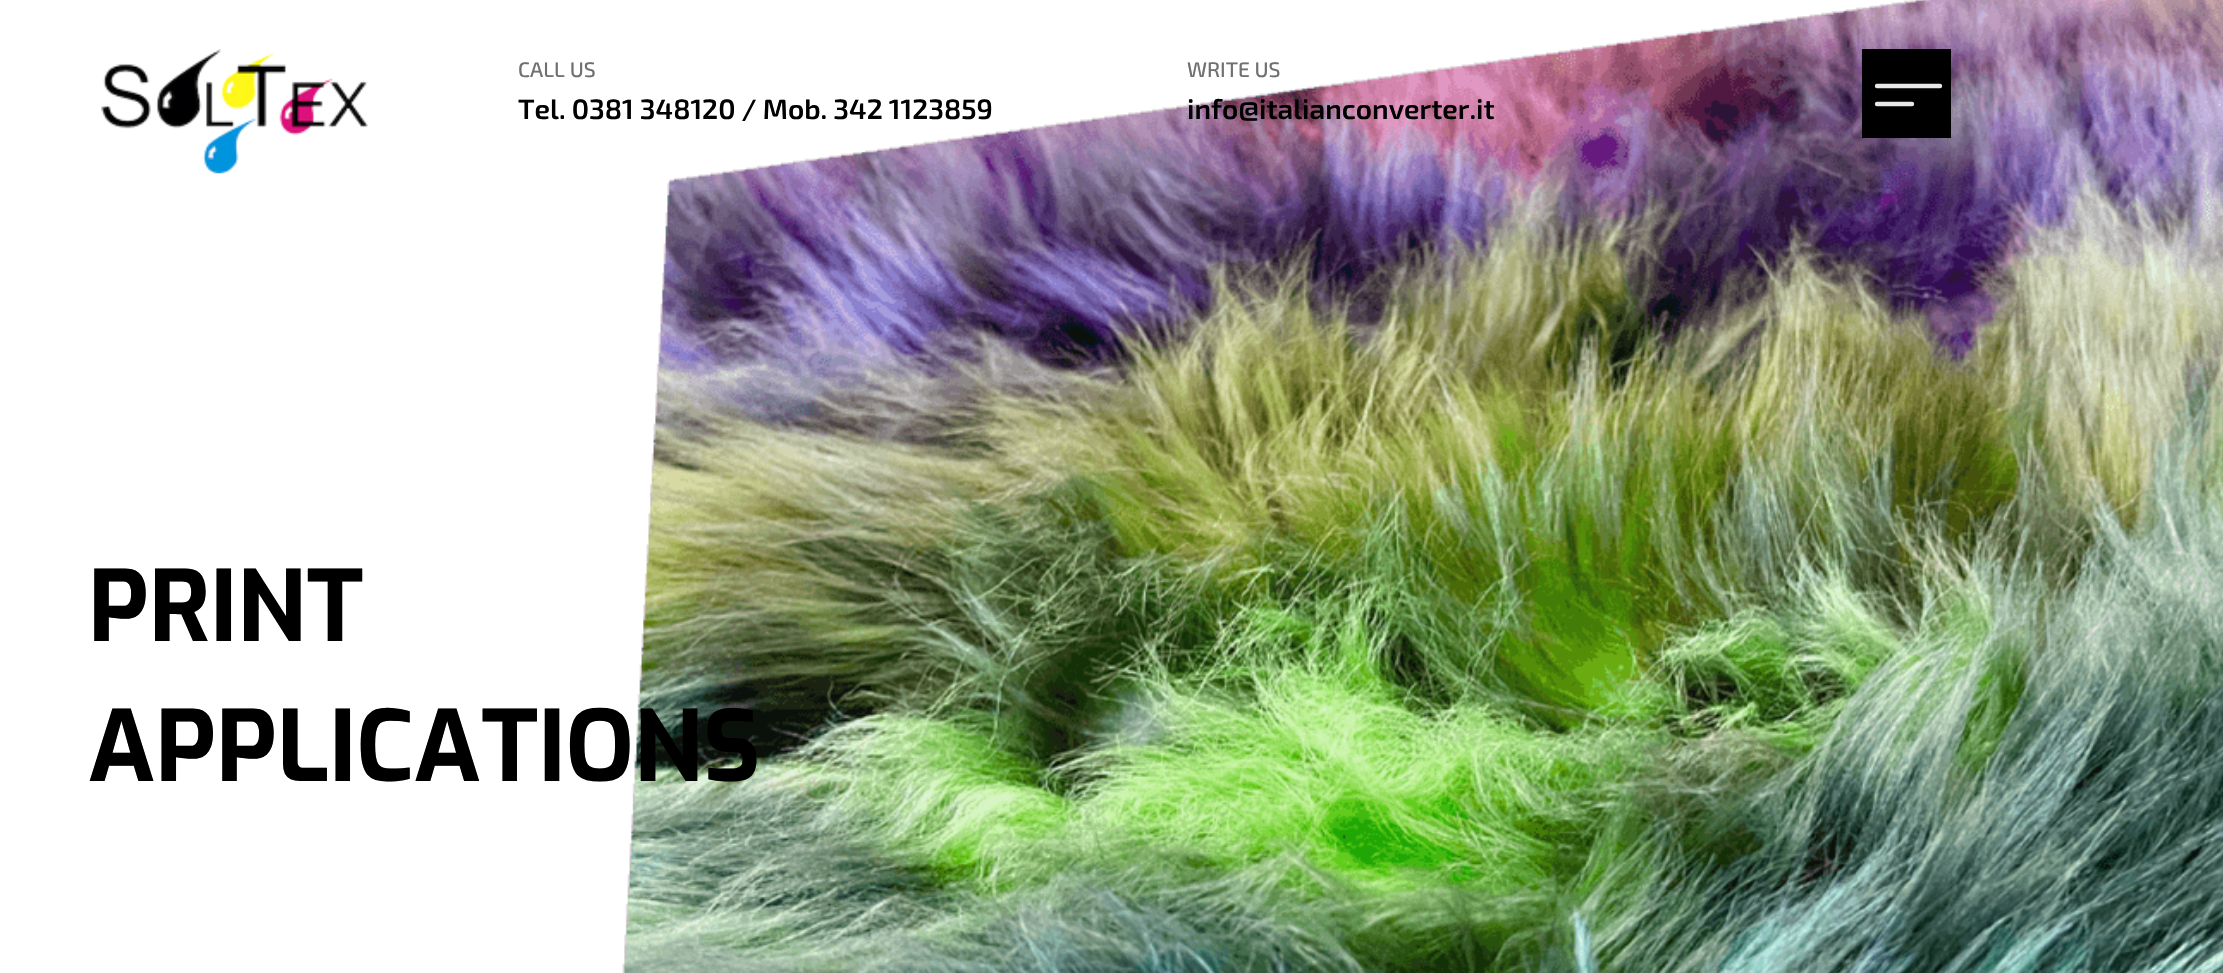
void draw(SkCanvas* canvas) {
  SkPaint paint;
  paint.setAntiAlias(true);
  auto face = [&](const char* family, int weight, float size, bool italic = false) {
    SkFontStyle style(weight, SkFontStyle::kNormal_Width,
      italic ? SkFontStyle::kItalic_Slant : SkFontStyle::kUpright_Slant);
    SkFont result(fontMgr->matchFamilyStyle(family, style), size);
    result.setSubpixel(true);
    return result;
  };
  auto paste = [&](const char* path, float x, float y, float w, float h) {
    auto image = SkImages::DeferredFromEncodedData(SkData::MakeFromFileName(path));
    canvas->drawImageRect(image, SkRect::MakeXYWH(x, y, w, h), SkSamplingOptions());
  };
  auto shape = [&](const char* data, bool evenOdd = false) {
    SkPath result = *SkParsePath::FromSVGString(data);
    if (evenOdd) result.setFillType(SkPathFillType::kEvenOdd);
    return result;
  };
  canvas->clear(0xffffffff);
  paste("img/1.png", 101, 49, 267, 125);
  paste("img/2.png", 622, 0, 1601, 973);
  paint.setColor(0xff000000);
  canvas->drawRect(SkRect::MakeXYWH(1862, 49, 89, 89), paint);
  paint.setStroke(true);
  paint.setStrokeWidth(4.4f);
  paint.setStrokeCap(SkPaint::kRound_Cap);
  paint.setColor(0xffe8e8e8);
  canvas->drawPath(shape("M1877 86H1940"), paint);
  canvas->drawPath(shape("M1877 104H1912"), paint);
  auto f0 = face("Exo 2", 500, 21);
  paint.setStroke(false);
  paint.setColor(0xff707070);
  canvas->drawString("CALL US", 518, 77, f0, paint);
  auto f1 = face("Exo 2", 600, 28);
  paint.setColor(0xff000000);
  canvas->drawString("Tel. 0381 348120 / Mob. 342 1123859", 518, 119, f1, paint);
  paint.setColor(0xff707070);
  canvas->drawString("WRITE US", 1187, 77, f0, paint);
  paint.setColor(0xff000000);
  canvas->drawString("info@italianconverter.it", 1187, 119, f1, paint);
  auto f2 = face("Exo", 700, 98);
  canvas->drawString("PRINT", 88, 641, f2, paint);
  canvas->drawString("APPLICATIONS", 88, 781, f2, paint);
}
